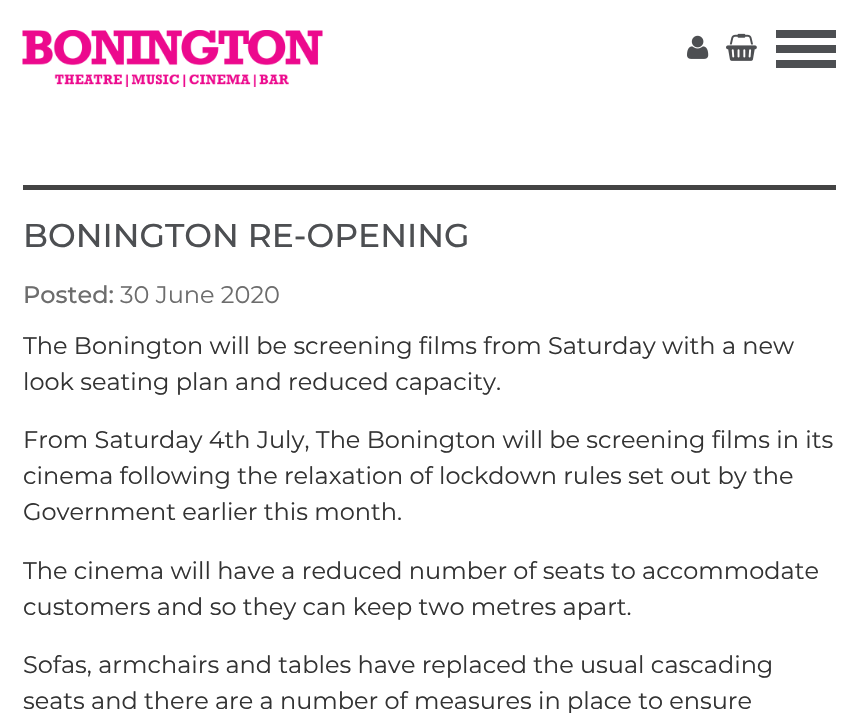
void draw(SkCanvas* canvas) {
  SkPaint paint;
  paint.setAntiAlias(true);
  auto face = [&](const char* family, int weight, float size, bool italic = false) {
    SkFontStyle style(weight, SkFontStyle::kNormal_Width,
      italic ? SkFontStyle::kItalic_Slant : SkFontStyle::kUpright_Slant);
    SkFont result(fontMgr->matchFamilyStyle(family, style), size);
    result.setSubpixel(true);
    return result;
  };
  auto paste = [&](const char* path, float x, float y, float w, float h) {
    auto image = SkImages::DeferredFromEncodedData(SkData::MakeFromFileName(path));
    canvas->drawImageRect(image, SkRect::MakeXYWH(x, y, w, h), SkSamplingOptions());
  };
  canvas->clear(0xffffffff);
  paste("img/1.png", 22, 30, 301, 57);
  paste("img/2.png", 687, 35, 22, 24);
  paste("img/3.png", 726, 33, 31, 28);
  {
    const struct { float x, y, w, h; SkColor color; } items[] = {
      {776, 30, 60, 8, 0xff4d4f52},
      {776, 45, 60, 8, 0xff4d4f52},
      {776, 60, 60, 8, 0xff4d4f52},
      {23, 185, 813, 5, 0xff444444},
    };
    for (auto [x, y, w, h, color] : items) {
      paint.setColor(color);
      canvas->drawRect(SkRect::MakeXYWH(x, y, w, h), paint);
    }
  }
  auto f0 = face("Montserrat", 500, 33);
  paint.setColor(0xff4d4f52);
  canvas->drawString("BONINGTON RE-OPENING", 23, 247, f0, paint);
  auto f1 = face("Montserrat", 500, 24);
  paint.setColor(0xff6d6d6d);
  canvas->drawString("Posted:", 23, 303, f1, paint);
  auto f2 = face("Montserrat", 400, 24);
  canvas->drawString("30 June 2020", 120, 303, f2, paint);
  paint.setColor(0xff333333);
  {
    const struct { const char* s; float x, y; } items[] = {
      {"The Bonington will be screening films from Saturday with a new", 23, 354},
      {"look seating plan and reduced capacity.", 23, 390},
      {"From Saturday 4th July, The Bonington will be screening films in its", 23, 448},
      {"cinema following the relaxation of lockdown rules set out by the", 23, 484},
      {"Government earlier this month.", 23, 520},
      {"The cinema will have a reduced number of seats to accommodate", 23, 579},
      {"customers and so they can keep two metres apart.", 23, 615},
      {"Sofas, armchairs and tables have replaced the usual cascading", 23, 673},
      {"seats and there are a number of measures in place to ensure", 23, 709},
    };
    for (auto [s, x, y] : items) {
      canvas->drawString(s, x, y, f2, paint);
    }
  }
}
